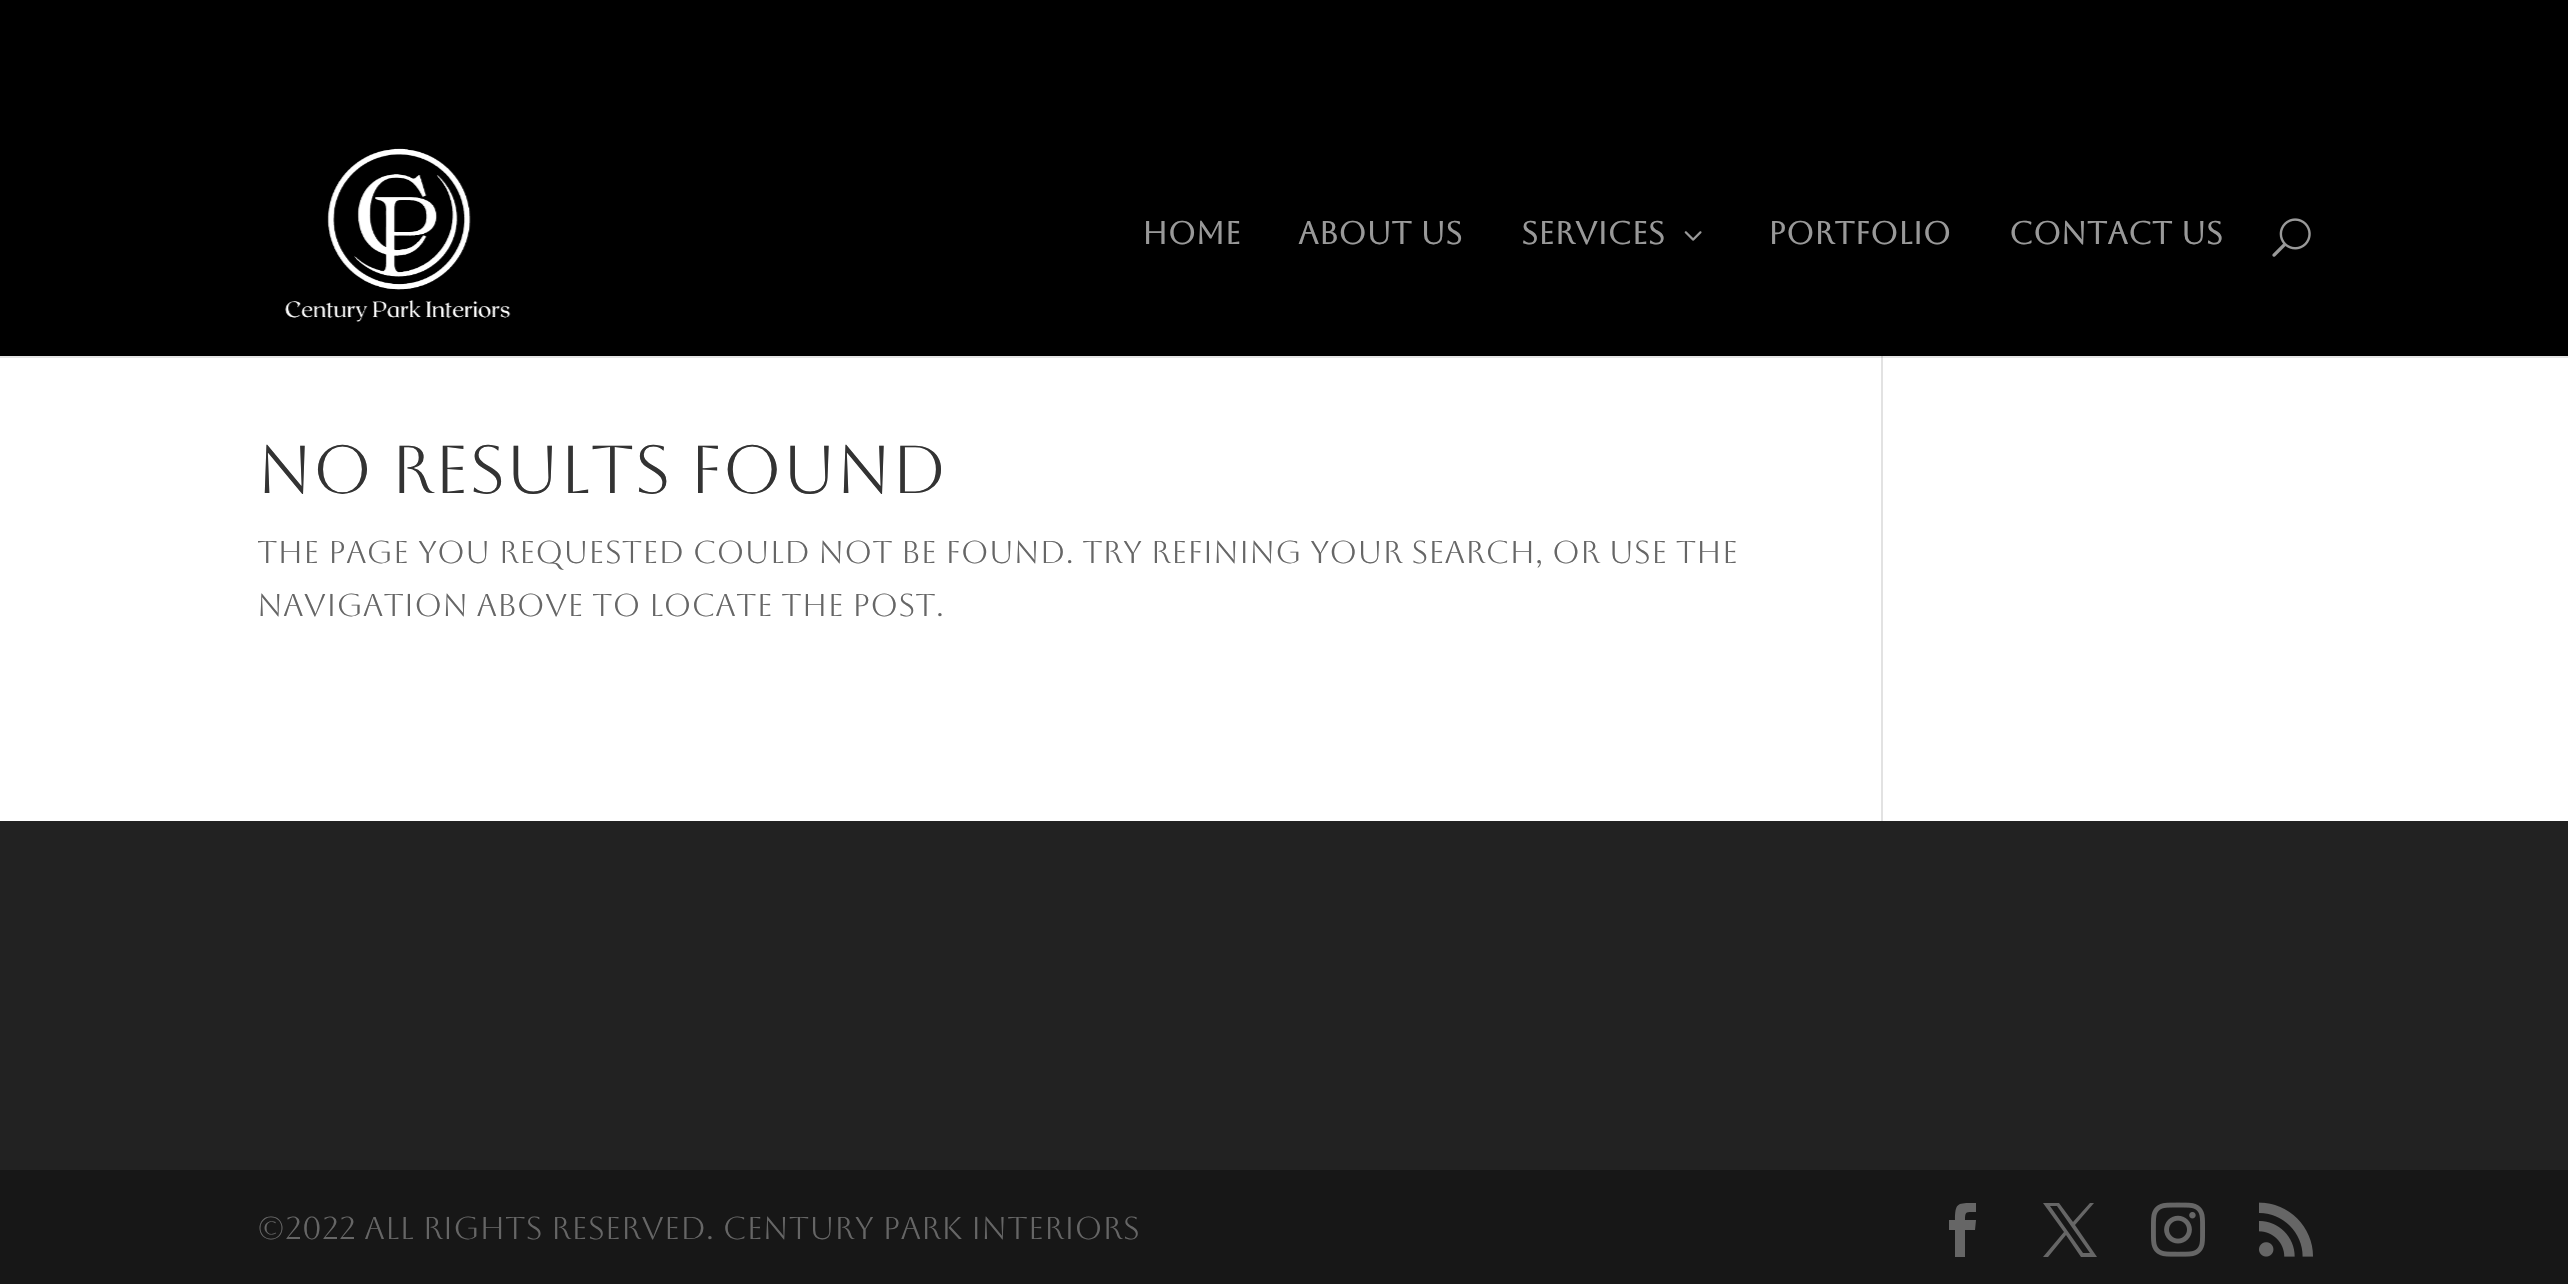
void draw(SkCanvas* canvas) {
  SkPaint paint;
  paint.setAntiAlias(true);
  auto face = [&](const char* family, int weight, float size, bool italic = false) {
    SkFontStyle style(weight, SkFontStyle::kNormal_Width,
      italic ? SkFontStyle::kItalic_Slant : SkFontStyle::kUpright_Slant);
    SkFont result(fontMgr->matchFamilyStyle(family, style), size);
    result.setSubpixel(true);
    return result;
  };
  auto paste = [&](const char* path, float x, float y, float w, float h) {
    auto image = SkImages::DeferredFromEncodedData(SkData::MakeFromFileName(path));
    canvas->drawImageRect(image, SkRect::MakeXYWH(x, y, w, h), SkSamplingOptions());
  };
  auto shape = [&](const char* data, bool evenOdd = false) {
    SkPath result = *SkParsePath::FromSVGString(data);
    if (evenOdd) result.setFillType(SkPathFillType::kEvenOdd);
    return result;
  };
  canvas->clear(0xffffffff);
  paint.setColor(0xffe2e2e2);
  canvas->drawRect(SkRect::MakeXYWH(1881, 356, 2, 465), paint);
  paint.setColor(0x1a000000);
  canvas->drawPath(shape("M0 356V358H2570V115V356Z"), paint);
  paint.setColor(0xff000000);
  canvas->drawRect(SkRect::MakeXYWH(0, 0, 2568, 356), paint);
  paste("img/1.png", 285, 148, 226, 174);
  paste("img/2.png", 1684, 231, 18, 10);
  paste("img/3.png", 2272, 218, 39, 39);
  paint.setColor(0xff222222);
  canvas->drawRect(SkRect::MakeXYWH(0, 821, 2568, 349), paint);
  paint.setColor(0xff171717);
  canvas->drawRect(SkRect::MakeXYWH(0, 1170, 2568, 114), paint);
  paint.setColor(0xff666666);
  canvas->drawPath(shape("M1955 1257H1965V1230H1975L1976 1220H1965C1965 1211 1966 1212 1976 1212V1203C1958 1203 1955 1202 1955 1220H1949V1230H1955Z"), paint);
  canvas->drawPath(shape("M2043 1203L2064 1232L2043 1257H2048L2066 1235L2081 1257H2097L2075 1225L2094 1203H2090L2073 1222L2059 1203ZM2050 1206H2057L2090 1253H2083Z"), paint);
  paste("img/4.png", 2151, 1202, 54, 55);
  paste("img/5.png", 2259, 1202, 54, 55);
  auto f0 = face("Aboreto", 700, 31.5f);
  paint.setColor(0xff999999);
  {
    const struct { const char* s; float x, y; } items[] = {
      {"HOME", 1142, 244},
      {"About Us", 1298, 244},
      {"Services", 1521, 244},
      {"Portfolio", 1768, 244},
      {"Contact Us", 2009, 244},
    };
    for (auto [s, x, y] : items) {
      canvas->drawString(s, x, y, f0, paint);
    }
  }
  auto f1 = face("Aboreto", 400, 67.5f);
  paint.setColor(0xff333333);
  canvas->drawString("No Results Found", 257, 493, f1, paint);
  auto f2 = face("Aboreto", 400, 31.5f);
  paint.setColor(0xff666666);
  {
    const struct { const char* s; float x, y; } items[] = {
      {"The page you requested could not be found. Try refining your search, or use the", 257, 563},
      {"navigation above to locate the post.", 257, 616},
      {"©2022 All Rights Reserved. Century Park Interiors", 257, 1239},
    };
    for (auto [s, x, y] : items) {
      canvas->drawString(s, x, y, f2, paint);
    }
  }
}
